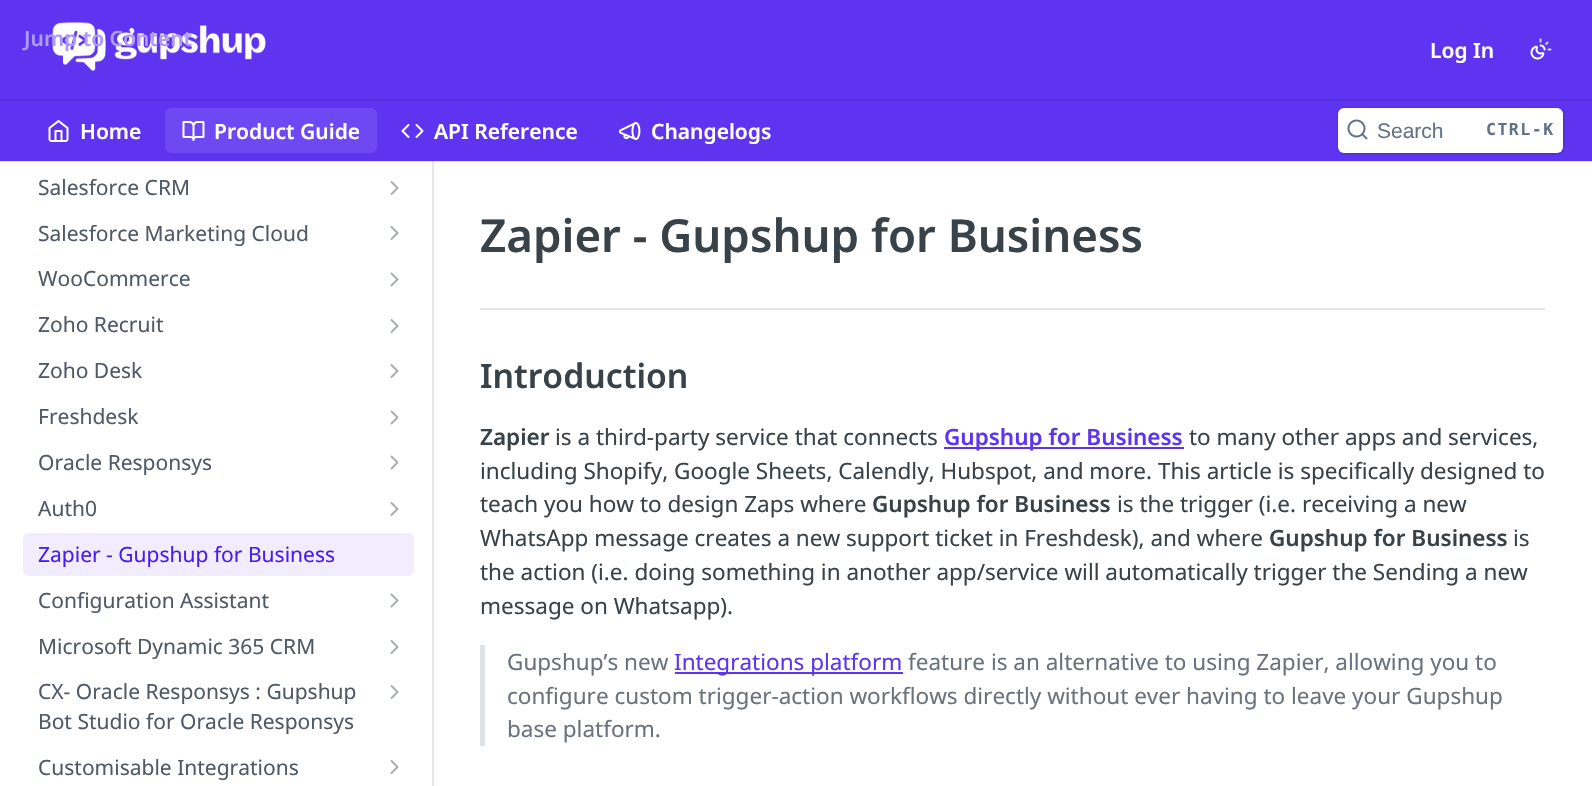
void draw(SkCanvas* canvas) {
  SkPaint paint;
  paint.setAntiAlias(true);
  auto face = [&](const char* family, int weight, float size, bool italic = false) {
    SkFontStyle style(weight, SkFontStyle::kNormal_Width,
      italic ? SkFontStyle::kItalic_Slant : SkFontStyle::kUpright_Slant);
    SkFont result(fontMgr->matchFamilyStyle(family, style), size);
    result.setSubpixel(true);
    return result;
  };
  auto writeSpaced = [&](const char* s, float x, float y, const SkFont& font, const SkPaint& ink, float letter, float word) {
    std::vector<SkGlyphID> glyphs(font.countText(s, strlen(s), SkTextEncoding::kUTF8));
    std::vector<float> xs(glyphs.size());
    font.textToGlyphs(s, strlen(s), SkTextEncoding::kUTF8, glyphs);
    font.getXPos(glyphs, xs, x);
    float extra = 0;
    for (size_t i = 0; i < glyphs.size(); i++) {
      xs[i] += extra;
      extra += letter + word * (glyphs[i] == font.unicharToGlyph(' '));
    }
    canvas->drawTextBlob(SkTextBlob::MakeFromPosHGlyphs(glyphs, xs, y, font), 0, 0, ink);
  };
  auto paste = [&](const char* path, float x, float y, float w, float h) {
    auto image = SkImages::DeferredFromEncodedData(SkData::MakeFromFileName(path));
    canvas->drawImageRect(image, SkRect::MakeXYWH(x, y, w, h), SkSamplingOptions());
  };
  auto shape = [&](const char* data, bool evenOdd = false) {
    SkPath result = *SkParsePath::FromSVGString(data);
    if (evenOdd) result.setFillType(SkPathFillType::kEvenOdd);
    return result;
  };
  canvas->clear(0xffffffff);
  paint.setColor(0xffe6e6e6);
  canvas->drawPath(shape("M2 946V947H434V161H432V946Z"), paint);
  {
    const struct { float x, y, w, h; SkColor color; } items[] = {
      {0, 161, 1592, 1, 0x1a000000},
      {0, 0, 1592, 161, 0xff5e34f1},
      {0, 99, 1592, 2, 0xff552fd9},
    };
    for (auto [x, y, w, h, color] : items) {
      paint.setColor(color);
      canvas->drawRect(SkRect::MakeXYWH(x, y, w, h), paint);
    }
  }
  paste("img/1.png", 52, 22, 214, 49);
  paste("img/2.png", 1530, 38, 22, 22);
  paste("img/3.png", 48, 120, 21, 22);
  paint.setColor(0xff6e48f2);
  canvas->drawRoundRect(SkRect::MakeXYWH(165, 108, 212, 45), 6, 6, paint);
  paste("img/4.png", 182, 121, 23, 20);
  paste("img/5.png", 401, 124, 23, 14);
  paste("img/6.png", 619, 122, 22, 18);
  paint.setStroke(true);
  paint.setStrokeWidth(2);
  paint.setColor(0xff552fd9);
  canvas->drawRoundRect(SkRect::MakeXYWH(1338, 108, 226, 46), 7, 7, paint);
  paint.setStroke(false);
  paint.setColor(0xffffffff);
  canvas->drawRoundRect(SkRect::MakeXYWH(1338, 108, 225, 45), 6, 6, paint);
  paste("img/7.png", 1347, 119, 21, 21);
  paste("img/8.png", 390, 181, 9, 14);
  paste("img/8.png", 390, 226, 9, 14);
  paste("img/9.png", 390, 272, 9, 15);
  paste("img/8.png", 390, 319, 9, 14);
  paste("img/8.png", 390, 364, 9, 14);
  paste("img/9.png", 390, 410, 9, 15);
  paste("img/9.png", 390, 455, 9, 15);
  paste("img/8.png", 390, 502, 9, 14);
  paint.setColor(0xfff1edfe);
  canvas->drawRoundRect(SkRect::MakeXYWH(23, 533, 391, 43), 6, 6, paint);
  paste("img/9.png", 390, 593, 9, 15);
  paste("img/8.png", 390, 640, 9, 14);
  paste("img/8.png", 390, 685, 9, 14);
  paste("img/8.png", 390, 760, 9, 14);
  {
    const struct { float x, y, w, h; SkColor color; } items[] = {
      {480, 308, 1065, 2, 0xffe6e6e6},
      {944, 447, 240, 2, 0xff5e34f1},
      {480, 645, 5, 101, 0xffdfe2e5},
      {675, 672, 228, 2, 0xff5e34f1},
    };
    for (auto [x, y, w, h, color] : items) {
      paint.setColor(color);
      canvas->drawRect(SkRect::MakeXYWH(x, y, w, h), paint);
    }
  }
  auto f0 = face("Noto Sans", 600, 21);
  paint.setColor(0xffaf9af8);
  canvas->drawString("Jump to Content", 24, 46, f0, paint);
  paint.setColor(0xffffffff);
  {
    const struct { const char* s; float x, y; } items[] = {
      {"Log In", 1430, 58},
      {"Home", 80, 139},
      {"Product Guide", 214, 139},
      {"API Reference", 434, 139},
      {"Changelogs", 651, 139},
    };
    for (auto [s, x, y] : items) {
      canvas->drawString(s, x, y, f0, paint);
    }
  }
  auto f1 = face("Liberation Sans", 400, 21);
  paint.setColor(0xff637288);
  canvas->drawString("Search", 1377, 138, f1, paint);
  auto f2 = face("DejaVu Sans Mono", 700, 16.5f);
  writeSpaced("CTRL-K", 1486, 135, f2, paint, 1.5f, 0);
  auto f3 = face("Noto Sans", 400, 21);
  paint.setColor(0xff4f5a66);
  {
    const struct { const char* s; float x, y; } items[] = {
      {"Salesforce CRM", 38, 195},
      {"Salesforce Marketing Cloud", 38, 241},
      {"WooCommerce", 38, 286},
      {"Zoho Recruit", 38, 332},
      {"Zoho Desk", 38, 378},
      {"Freshdesk", 38, 424},
      {"Oracle Responsys", 38, 470},
      {"Auth0", 38, 516},
    };
    for (auto [s, x, y] : items) {
      canvas->drawString(s, x, y, f3, paint);
    }
  }
  paint.setColor(0xff4b1cef);
  canvas->drawString("Zapier - Gupshup for Business", 38, 562, f3, paint);
  paint.setColor(0xff4f5a66);
  {
    const struct { const char* s; float x, y; } items[] = {
      {"Configuration Assistant", 38, 608},
      {"Microsoft Dynamic 365 CRM", 38, 654},
      {"CX- Oracle Responsys : Gupshup", 38, 699},
      {"Bot Studio for Oracle Responsys", 38, 729},
      {"Customisable Integrations", 38, 775},
    };
    for (auto [s, x, y] : items) {
      canvas->drawString(s, x, y, f3, paint);
    }
  }
  auto f4 = face("Noto Sans", 600, 45.6f);
  paint.setColor(0xff384248);
  canvas->drawString("Zapier - Gupshup for Business", 480, 252, f4, paint);
  auto f5 = face("Noto Sans", 600, 33.75f);
  canvas->drawString("Introduction", 480, 388, f5, paint);
  auto f6 = face("Noto Sans", 600, 22.5f);
  canvas->drawString("Zapier", 480, 445, f6, paint);
  auto f7 = face("Noto Sans", 400, 22.5f);
  canvas->drawString("is a third-party service that connects", 555, 445, f7, paint);
  paint.setColor(0xff5e34f1);
  canvas->drawString("Gupshup for Business", 944, 445, f6, paint);
  paint.setColor(0xff384248);
  {
    const struct { const char* s; float x, y; } items[] = {
      {"to many other apps and services,", 1189, 445},
      {"including Shopify, Google Sheets, Calendly, Hubspot, and more. This article is specifically designed to", 480, 479},
      {"teach you how to design Zaps where", 480, 512},
    };
    for (auto [s, x, y] : items) {
      canvas->drawString(s, x, y, f7, paint);
    }
  }
  canvas->drawString("Gupshup for Business", 872, 512, f6, paint);
  canvas->drawString("is the trigger (i.e. receiving a new", 1117, 512, f7, paint);
  canvas->drawString("WhatsApp message creates a new support ticket in Freshdesk), and where", 480, 546, f7, paint);
  canvas->drawString("Gupshup for Business", 1269, 546, f6, paint);
  {
    const struct { const char* s; float x, y; } items[] = {
      {"is", 1513, 546},
      {"the action (i.e. doing something in another app/service will automatically trigger the Sending a new", 480, 580},
      {"message on Whatsapp).", 480, 614},
    };
    for (auto [s, x, y] : items) {
      canvas->drawString(s, x, y, f7, paint);
    }
  }
  paint.setColor(0xff6a737d);
  canvas->drawString("Gupshup’s new", 507, 670, f7, paint);
  paint.setColor(0xff5e34f1);
  canvas->drawString("Integrations platform", 674, 670, f7, paint);
  paint.setColor(0xff6a737d);
  {
    const struct { const char* s; float x, y; } items[] = {
      {"feature is an alternative to using Zapier, allowing you to", 908, 670},
      {"configure custom trigger-action workflows directly without ever having to leave your Gupshup", 507, 704},
      {"base platform.", 507, 737},
    };
    for (auto [s, x, y] : items) {
      canvas->drawString(s, x, y, f7, paint);
    }
  }
}
